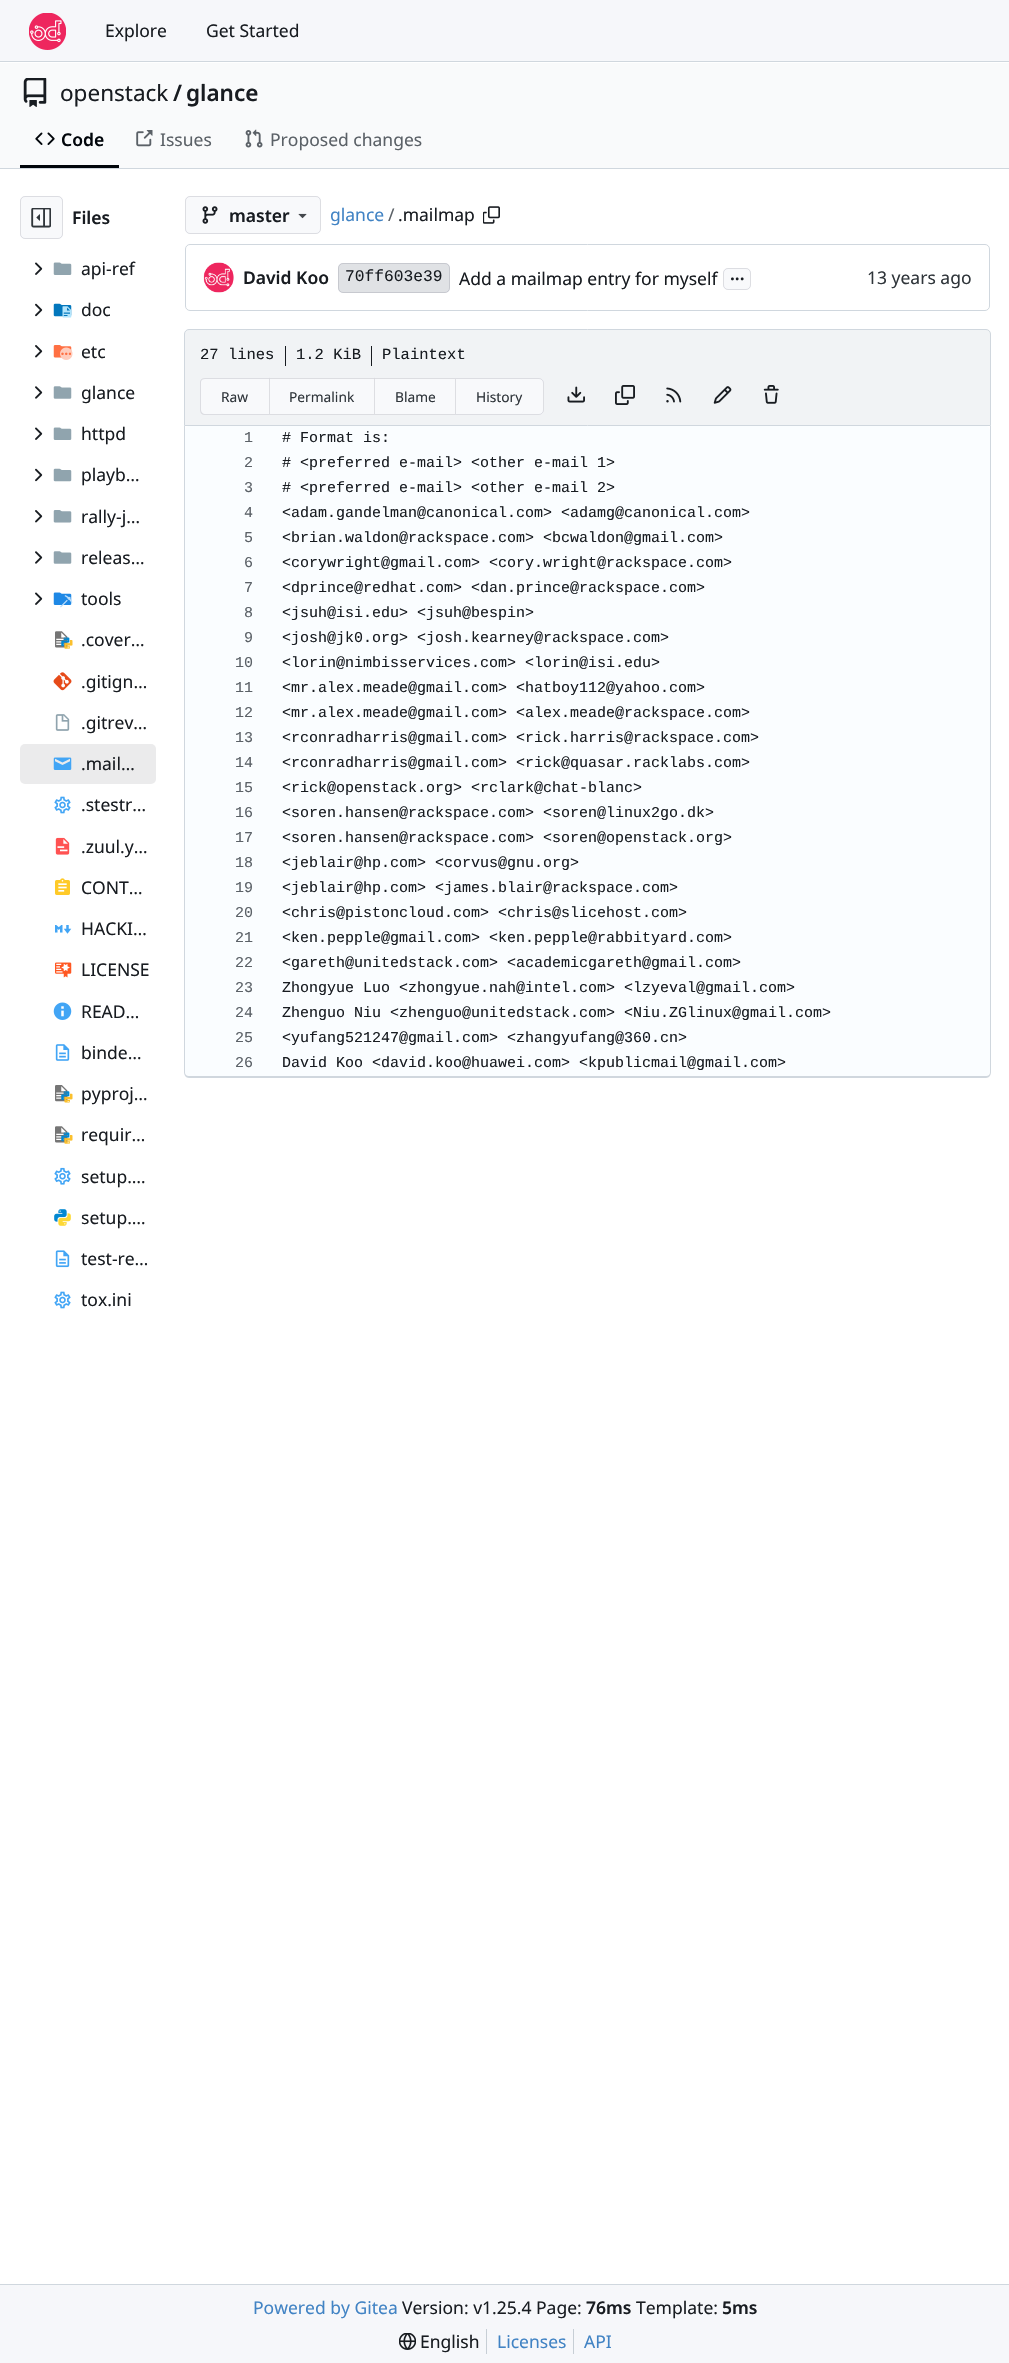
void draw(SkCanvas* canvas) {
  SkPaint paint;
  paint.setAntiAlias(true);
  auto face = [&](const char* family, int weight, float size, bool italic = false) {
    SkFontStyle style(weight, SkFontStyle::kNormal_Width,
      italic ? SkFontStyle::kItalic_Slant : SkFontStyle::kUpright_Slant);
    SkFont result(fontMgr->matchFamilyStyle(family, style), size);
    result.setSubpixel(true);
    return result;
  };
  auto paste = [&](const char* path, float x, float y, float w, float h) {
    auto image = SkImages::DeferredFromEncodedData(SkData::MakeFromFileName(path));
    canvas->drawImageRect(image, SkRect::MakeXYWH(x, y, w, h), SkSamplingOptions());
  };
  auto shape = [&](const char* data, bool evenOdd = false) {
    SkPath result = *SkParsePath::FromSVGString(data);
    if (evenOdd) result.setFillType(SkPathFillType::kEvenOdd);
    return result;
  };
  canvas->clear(0xffffffff);
  paint.setColor(0xfff6f7fa);
  canvas->drawRect(SkRect::MakeXYWH(0, 0, 1009, 61), paint);
  paint.setColor(0xffd0d7de);
  canvas->drawRect(SkRect::MakeXYWH(0, 61, 1009, 1), paint);
  paste("img/1.png", 29, 13, 37, 37);
  paint.setColor(0xfff9fafb);
  canvas->drawRect(SkRect::MakeXYWH(0, 63, 1009, 105), paint);
  paste("img/2.png", 23, 78, 24, 29);
  paint.setColor(0xff01050a);
  canvas->drawRect(SkRect::MakeXYWH(20, 165, 99, 3), paint);
  paste("img/3.png", 35, 132, 20, 13);
  paste("img/4.png", 136, 130, 17, 17);
  paste("img/5.png", 245, 129, 18, 19);
  paint.setColor(0xffd0d7de);
  canvas->drawRect(SkRect::MakeXYWH(0, 168, 1009, 1), paint);
  paint.setColor(0xfff8f9fb);
  canvas->drawRoundRect(SkRect::MakeXYWH(20, 196, 43, 43), 5, 5, paint);
  paint.setStroke(true);
  paint.setStrokeWidth(1);
  paint.setColor(0x1c000017);
  canvas->drawRoundRect(SkRect::MakeXYWH(20.5f, 196.5f, 42, 42), 4.5f, 4.5f, paint);
  paste("img/6.png", 31, 208, 20, 20);
  paste("img/7.png", 35, 262, 8, 13);
  paste("img/8.png", 53, 262, 19, 13);
  paste("img/9.png", 35, 303, 8, 14);
  paste("img/10.png", 53, 303, 19, 15);
  paste("img/11.png", 35, 345, 8, 13);
  paste("img/12.png", 53, 345, 20, 15);
  paste("img/13.png", 35, 386, 8, 13);
  paste("img/14.png", 53, 386, 19, 13);
  paste("img/7.png", 35, 427, 8, 13);
  paste("img/8.png", 53, 427, 19, 13);
  paste("img/9.png", 35, 468, 8, 14);
  paste("img/15.png", 53, 468, 19, 14);
  paste("img/11.png", 35, 510, 8, 13);
  paste("img/16.png", 53, 510, 19, 13);
  paste("img/13.png", 35, 551, 8, 13);
  paste("img/14.png", 53, 551, 19, 13);
  paste("img/7.png", 35, 592, 8, 13);
  paste("img/17.png", 53, 592, 20, 16);
  paste("img/18.png", 55, 631, 18, 18);
  paste("img/19.png", 53, 672, 19, 19);
  paste("img/20.png", 55, 714, 15, 17);
  paint.setStroke(false);
  paint.setColor(0xffebebec);
  canvas->drawRoundRect(SkRect::MakeXYWH(20, 744, 136, 40), 5, 5, paint);
  paste("img/21.png", 53, 757, 19, 13);
  paste("img/22.png", 54, 796, 17, 18);
  paste("img/23.png", 55, 837, 15, 18);
  paste("img/24.png", 55, 878, 15, 17);
  paste("img/25.png", 55, 925, 17, 9);
  paste("img/26.png", 55, 962, 17, 16);
  paste("img/27.png", 53, 1002, 19, 18);
  paste("img/28.png", 55, 1044, 15, 17);
  paste("img/29.png", 55, 1085, 18, 18);
  paste("img/18.png", 55, 1126, 18, 18);
  paste("img/30.png", 54, 1167, 17, 18);
  paste("img/31.png", 54, 1209, 17, 17);
  paste("img/32.png", 55, 1250, 15, 18);
  paste("img/22.png", 54, 1291, 17, 18);
  paint.setColor(0xfff8f9fb);
  canvas->drawRoundRect(SkRect::MakeXYWH(185, 196, 136, 38), 5, 5, paint);
  paint.setStroke(true);
  paint.setColor(0x1c000017);
  canvas->drawRoundRect(SkRect::MakeXYWH(185.5f, 196.5f, 135, 37), 4.5f, 4.5f, paint);
  paste("img/33.png", 202, 206, 16, 18);
  paste("img/34.png", 298, 213, 9, 6);
  paste("img/35.png", 483, 206, 17, 18);
  paint.setColor(0xffd0d7de);
  canvas->drawRoundRect(SkRect::MakeXYWH(185.5f, 244.5f, 804, 66), 4.5f, 4.5f, paint);
  paste("img/36.png", 203, 262, 31, 31);
  paint.setStroke(false);
  paint.setColor(0xffe0e2e5);
  canvas->drawRoundRect(SkRect::MakeXYWH(338, 263, 112, 30), 5, 5, paint);
  paint.setStroke(true);
  paint.setColor(0x1c000017);
  canvas->drawRoundRect(SkRect::MakeXYWH(338.5f, 263.5f, 111, 29), 4.5f, 4.5f, paint);
  paint.setStroke(false);
  paint.setColor(0xfff8f9fb);
  canvas->drawRoundRect(SkRect::MakeXYWH(723, 268, 28, 22), 5, 5, paint);
  paint.setStroke(true);
  paint.setColor(0x1c000017);
  canvas->drawRoundRect(SkRect::MakeXYWH(723.5f, 268.5f, 27, 21), 4.5f, 4.5f, paint);
  paint.setStroke(false);
  paint.setColor(0xfff1f3f5);
  canvas->drawPath(shape("M189 329.5H986C988.5 329.5 990.5 331.5 990.5 334V425.5H184.5V334C184.5 331.5 186.5 329.5 189 329.5Z"), paint);
  paint.setStroke(true);
  paint.setColor(0xffd0d7de);
  canvas->drawPath(shape("M189 329.5H986C988.5 329.5 990.5 331.5 990.5 334V425.5H184.5V334C184.5 331.5 186.5 329.5 189 329.5Z"), paint);
  paint.setStroke(false);
  paint.setColor(0xff181c21);
  canvas->drawRect(SkRect::MakeXYWH(285, 346, 1, 20), paint);
  canvas->drawRect(SkRect::MakeXYWH(371, 346, 1, 20), paint);
  paint.setColor(0xfff8f9fb);
  canvas->drawPath(shape("M205 378H269V415H205C202 415 200 413 200 410V383C200 380 202 378 205 378Z"), paint);
  paint.setColor(0x1c000017);
  canvas->drawPath(shape("M205 378H269V415H205C202 415 200 413 200 410V382C200 380 202 378 205 378ZM205 379H269V414H205C203 414 201 412 201 410V382C201 380 203 379 205 379Z", true), paint);
  paint.setColor(0xfff8f9fb);
  canvas->drawRect(SkRect::MakeXYWH(269, 378, 186, 37), paint);
  paint.setColor(0xffdcdde1);
  canvas->drawPath(shape("M269 378H374V379H270Z"), paint);
  canvas->drawPath(shape("M374 415H269L270 414H374Z"), paint);
  paint.setColor(0x1c000017);
  canvas->drawPath(shape("M269 415V377.5L270 379V414Z"), paint);
  paint.setColor(0xffdcdde1);
  canvas->drawPath(shape("M374 378H455V379H375Z"), paint);
  canvas->drawPath(shape("M455 415H374L375 414H455Z"), paint);
  paint.setColor(0x1c000017);
  canvas->drawPath(shape("M374 415V377.5L375 379V414Z"), paint);
  paint.setColor(0xfff8f9fb);
  canvas->drawPath(shape("M455 378H539C542 378 544 380 544 383V410C544 413 542 415 539 415H455Z"), paint);
  paint.setStroke(true);
  paint.setColor(0x1c000017);
  canvas->drawPath(shape("M455.5 378.5H539C541.5 378.5 543.5 380.5 543.5 383V410C543.5 412.5 541.5 414.5 539 414.5H455.5Z"), paint);
  paste("img/37.png", 567, 386, 18, 17);
  paste("img/38.png", 615, 385, 20, 20);
  paste("img/39.png", 666, 387, 16, 16);
  paste("img/40.png", 713, 386, 19, 18);
  paste("img/41.png", 763, 385, 16, 19);
  paint.setStroke(false);
  paint.setColor(0xffd0d7de);
  canvas->drawPath(shape("M184 426H991V1072C991 1075 989 1078 986 1078H189C186 1078 184 1075 184 1072ZM185 426H990V1072C990 1075 988 1076 986 1076H189C187 1076 185 1075 185 1072Z", true), paint);
  paint.setColor(0xfffafdff);
  canvas->drawRoundRect(SkRect::MakeXYWH(185, 426, 805, 650), 5, 5, paint);
  paint.setColor(0xfff6f7fa);
  canvas->drawRect(SkRect::MakeXYWH(0, 2285, 1009, 78), paint);
  paint.setColor(0xffd0d7de);
  canvas->drawRect(SkRect::MakeXYWH(0, 2284, 1009, 1), paint);
  paste("img/42.png", 399, 2333, 17, 17);
  paint.setColor(0xffc7ced5);
  canvas->drawRect(SkRect::MakeXYWH(486, 2329, 1, 25), paint);
  canvas->drawRect(SkRect::MakeXYWH(573, 2329, 1, 25), paint);
  auto f0 = face("Noto Sans", 400, 17.5f);
  paint.setColor(0xff181c21);
  canvas->drawString("Explore", 105, 37, f0, paint);
  canvas->drawString("Get Started", 206, 37, f0, paint);
  auto f1 = face("Noto Sans", 400, 22.5f);
  canvas->drawString("openstack", 60, 101, f1, paint);
  auto f2 = face("Noto Sans", 600, 22.5f);
  canvas->drawString("/", 173, 101, f2, paint);
  canvas->drawString("glance", 186, 101, f2, paint);
  auto f3 = face("Noto Sans", 600, 17.5f);
  paint.setColor(0xff01050a);
  canvas->drawString("Code", 61, 146, f3, paint);
  paint.setColor(0xff5b6167);
  canvas->drawString("Issues", 160, 146, f0, paint);
  canvas->drawString("Proposed changes", 270, 146, f0, paint);
  paint.setColor(0xff181c21);
  canvas->drawString("Files", 72, 224, f3, paint);
  {
    const struct { const char* s; float x, y; } items[] = {
      {"api-ref", 81, 275},
      {"doc", 81, 316},
      {"etc", 81, 358},
      {"glance", 81, 399},
      {"httpd", 81, 440},
      {"playb…", 81, 481},
      {"rally-j…", 81, 523},
      {"releas…", 81, 564},
      {"tools", 81, 605},
      {".cover…", 81, 646},
      {".gitign…", 81, 688},
      {".gitrev…", 81, 729},
      {".mail…", 81, 770},
      {".stestr…", 81, 811},
      {".zuul.y…", 81, 853},
      {"CONT…", 81, 894},
      {"HACKI…", 81, 935},
      {"LICENSE", 81, 976},
      {"READ…", 81, 1018},
      {"binde…", 81, 1059},
      {"pyproj…", 81, 1100},
      {"requir…", 81, 1141},
      {"setup.…", 81, 1183},
      {"setup.…", 81, 1224},
      {"test-re…", 81, 1265},
      {"tox.ini", 81, 1306},
    };
    for (auto [s, x, y] : items) {
      canvas->drawString(s, x, y, f0, paint);
    }
  }
  canvas->drawString("master", 229, 222, f3, paint);
  paint.setColor(0xff4183c4);
  canvas->drawString("glance", 330, 221, f0, paint);
  paint.setColor(0xff5b6167);
  canvas->drawString("/", 388, 221, f0, paint);
  paint.setColor(0xff181c21);
  canvas->drawString(".mailmap", 398, 221, f0, paint);
  canvas->drawString("David Koo", 243, 284, f3, paint);
  auto f4 = face("Liberation Mono", 400, 16.25f);
  canvas->drawString("70ff603e39", 345, 281, f4, paint);
  canvas->drawString("Add a mailmap entry for myself", 459, 285, f0, paint);
  canvas->drawString("...", 730, 280, f3, paint);
  paint.setColor(0xff30363b);
  canvas->drawString("13 years ago", 867, 284, f0, paint);
  auto f5 = face("Liberation Mono", 400, 15.5f);
  paint.setColor(0xff181c21);
  {
    const struct { const char* s; float x, y; } items[] = {
      {"27 lines", 200, 359},
      {"1.2 KiB", 296, 359},
      {"Plaintext", 382, 359},
    };
    for (auto [s, x, y] : items) {
      canvas->drawString(s, x, y, f5, paint);
    }
  }
  auto f6 = face("Noto Sans", 400, 13.75f);
  paint.setColor(0xff30363b);
  {
    const struct { const char* s; float x, y; } items[] = {
      {"Raw", 221, 402},
      {"Permalink", 289, 402},
      {"Blame", 395, 402},
      {"History", 476, 402},
    };
    for (auto [s, x, y] : items) {
      canvas->drawString(s, x, y, f6, paint);
    }
  }
  auto f7 = face("Liberation Mono", 400, 15);
  paint.setColor(0xff5b6167);
  canvas->drawString("1", 244, 442, f7, paint);
  paint.setColor(0xff181c21);
  canvas->drawString("# Format is:", 282, 442, f7, paint);
  paint.setColor(0xff5b6167);
  canvas->drawString("2", 244, 467, f7, paint);
  paint.setColor(0xff181c21);
  canvas->drawString("# <preferred e-mail> <other e-mail 1>", 282, 467, f7, paint);
  paint.setColor(0xff5b6167);
  canvas->drawString("3", 244, 492, f7, paint);
  paint.setColor(0xff181c21);
  canvas->drawString("# <preferred e-mail> <other e-mail 2>", 282, 492, f7, paint);
  paint.setColor(0xff5b6167);
  canvas->drawString("4", 244, 517, f7, paint);
  paint.setColor(0xff181c21);
  canvas->drawString("<adam.gandelman@canonical.com> <adamg@canonical.com>", 282, 517, f7, paint);
  paint.setColor(0xff5b6167);
  canvas->drawString("5", 244, 542, f7, paint);
  paint.setColor(0xff181c21);
  canvas->drawString("<brian.waldon@rackspace.com> <bcwaldon@gmail.com>", 282, 542, f7, paint);
  paint.setColor(0xff5b6167);
  canvas->drawString("6", 244, 567, f7, paint);
  paint.setColor(0xff181c21);
  canvas->drawString("<corywright@gmail.com> <cory.wright@rackspace.com>", 282, 567, f7, paint);
  paint.setColor(0xff5b6167);
  canvas->drawString("7", 244, 592, f7, paint);
  paint.setColor(0xff181c21);
  canvas->drawString("<dprince@redhat.com> <dan.prince@rackspace.com>", 282, 592, f7, paint);
  paint.setColor(0xff5b6167);
  canvas->drawString("8", 244, 617, f7, paint);
  paint.setColor(0xff181c21);
  canvas->drawString("<jsuh@isi.edu> <jsuh@bespin>", 282, 617, f7, paint);
  paint.setColor(0xff5b6167);
  canvas->drawString("9", 244, 642, f7, paint);
  paint.setColor(0xff181c21);
  canvas->drawString("<josh@jk0.org> <josh.kearney@rackspace.com>", 282, 642, f7, paint);
  paint.setColor(0xff5b6167);
  canvas->drawString("10", 235, 667, f7, paint);
  paint.setColor(0xff181c21);
  canvas->drawString("<lorin@nimbisservices.com> <lorin@isi.edu>", 282, 667, f7, paint);
  paint.setColor(0xff5b6167);
  canvas->drawString("11", 235, 692, f7, paint);
  paint.setColor(0xff181c21);
  canvas->drawString("<mr.alex.meade@gmail.com> <hatboy112@yahoo.com>", 282, 692, f7, paint);
  paint.setColor(0xff5b6167);
  canvas->drawString("12", 235, 717, f7, paint);
  paint.setColor(0xff181c21);
  canvas->drawString("<mr.alex.meade@gmail.com> <alex.meade@rackspace.com>", 282, 717, f7, paint);
  paint.setColor(0xff5b6167);
  canvas->drawString("13", 235, 742, f7, paint);
  paint.setColor(0xff181c21);
  canvas->drawString("<rconradharris@gmail.com> <rick.harris@rackspace.com>", 282, 742, f7, paint);
  paint.setColor(0xff5b6167);
  canvas->drawString("14", 235, 767, f7, paint);
  paint.setColor(0xff181c21);
  canvas->drawString("<rconradharris@gmail.com> <rick@quasar.racklabs.com>", 282, 767, f7, paint);
  paint.setColor(0xff5b6167);
  canvas->drawString("15", 235, 792, f7, paint);
  paint.setColor(0xff181c21);
  canvas->drawString("<rick@openstack.org> <rclark@chat-blanc>", 282, 792, f7, paint);
  paint.setColor(0xff5b6167);
  canvas->drawString("16", 235, 817, f7, paint);
  paint.setColor(0xff181c21);
  canvas->drawString("<soren.hansen@rackspace.com> <soren@linux2go.dk>", 282, 817, f7, paint);
  paint.setColor(0xff5b6167);
  canvas->drawString("17", 235, 842, f7, paint);
  paint.setColor(0xff181c21);
  canvas->drawString("<soren.hansen@rackspace.com> <soren@openstack.org>", 282, 842, f7, paint);
  paint.setColor(0xff5b6167);
  canvas->drawString("18", 235, 867, f7, paint);
  paint.setColor(0xff181c21);
  canvas->drawString("<jeblair@hp.com> <corvus@gnu.org>", 282, 867, f7, paint);
  paint.setColor(0xff5b6167);
  canvas->drawString("19", 235, 892, f7, paint);
  paint.setColor(0xff181c21);
  canvas->drawString("<jeblair@hp.com> <james.blair@rackspace.com>", 282, 892, f7, paint);
  paint.setColor(0xff5b6167);
  canvas->drawString("20", 235, 917, f7, paint);
  paint.setColor(0xff181c21);
  canvas->drawString("<chris@pistoncloud.com> <chris@slicehost.com>", 282, 917, f7, paint);
  paint.setColor(0xff5b6167);
  canvas->drawString("21", 235, 942, f7, paint);
  paint.setColor(0xff181c21);
  canvas->drawString("<ken.pepple@gmail.com> <ken.pepple@rabbityard.com>", 282, 942, f7, paint);
  paint.setColor(0xff5b6167);
  canvas->drawString("22", 235, 967, f7, paint);
  paint.setColor(0xff181c21);
  canvas->drawString("<gareth@unitedstack.com> <academicgareth@gmail.com>", 282, 967, f7, paint);
  paint.setColor(0xff5b6167);
  canvas->drawString("23", 235, 992, f7, paint);
  paint.setColor(0xff181c21);
  canvas->drawString("Zhongyue Luo <zhongyue.nah@intel.com> <lzyeval@gmail.com>", 282, 992, f7, paint);
  paint.setColor(0xff5b6167);
  canvas->drawString("24", 235, 1017, f7, paint);
  paint.setColor(0xff181c21);
  canvas->drawString("Zhenguo Niu <zhenguo@unitedstack.com> <Niu.ZGlinux@gmail.com>", 282, 1017, f7, paint);
  paint.setColor(0xff5b6167);
  canvas->drawString("25", 235, 1042, f7, paint);
  paint.setColor(0xff181c21);
  canvas->drawString("<yufang521247@gmail.com> <zhangyufang@360.cn>", 282, 1042, f7, paint);
  paint.setColor(0xff5b6167);
  canvas->drawString("26", 235, 1067, f7, paint);
  paint.setColor(0xff181c21);
  canvas->drawString("David Koo <david.koo@huawei.com> <kpublicmail@gmail.com>", 282, 1067, f7, paint);
  paint.setColor(0xff4183c4);
  canvas->drawString("Powered by Gitea", 253, 2314, f0, paint);
  paint.setColor(0xff181c21);
  canvas->drawString("Version: v1.25.4 Page:", 402, 2314, f0, paint);
  canvas->drawString("76ms", 586, 2314, f3, paint);
  canvas->drawString("Template:", 636, 2314, f0, paint);
  canvas->drawString("5ms", 722, 2314, f3, paint);
  canvas->drawString("English", 420, 2348, f0, paint);
  paint.setColor(0xff4183c4);
  canvas->drawString("Licenses", 497, 2348, f0, paint);
  canvas->drawString("API", 584, 2348, f0, paint);
}
